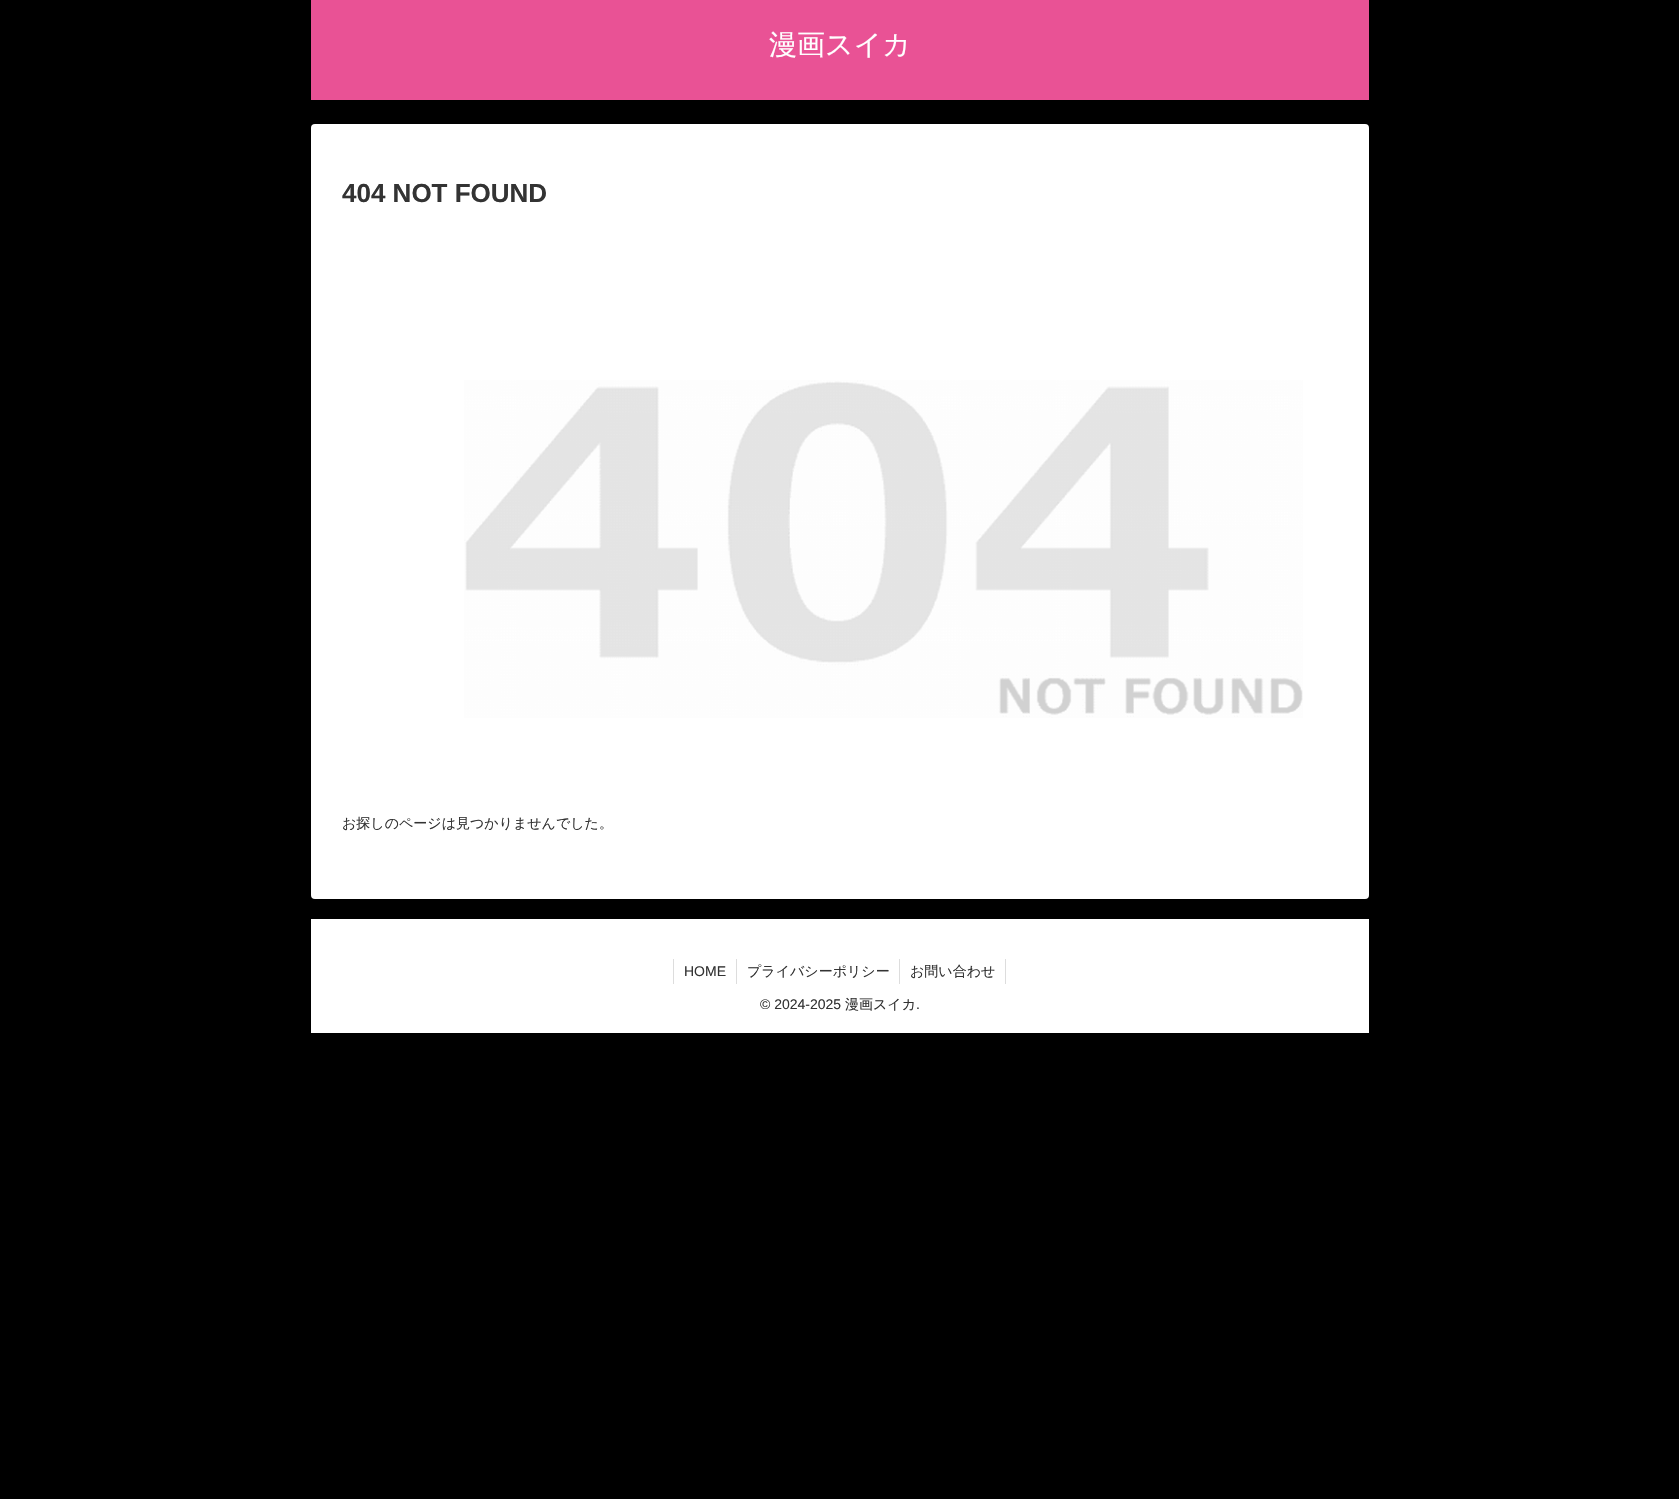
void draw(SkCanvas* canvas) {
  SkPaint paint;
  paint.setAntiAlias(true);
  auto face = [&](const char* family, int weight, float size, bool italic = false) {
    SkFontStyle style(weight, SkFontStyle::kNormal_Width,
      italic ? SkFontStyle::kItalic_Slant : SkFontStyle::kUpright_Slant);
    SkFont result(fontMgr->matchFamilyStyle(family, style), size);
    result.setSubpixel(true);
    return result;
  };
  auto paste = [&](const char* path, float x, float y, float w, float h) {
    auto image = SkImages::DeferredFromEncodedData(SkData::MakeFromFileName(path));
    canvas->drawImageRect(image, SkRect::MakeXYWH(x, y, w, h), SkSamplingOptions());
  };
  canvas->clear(0xff000000);
  paint.setColor(0xffe95295);
  canvas->drawRect(SkRect::MakeXYWH(311, 0, 1058, 100), paint);
  paint.setColor(0xffffffff);
  canvas->drawRoundRect(SkRect::MakeXYWH(311, 124, 1058, 775), 4, 4, paint);
  paste("img/1.png", 464, 380, 839, 338);
  {
    const struct { float x, y, w, h; SkColor color; } items[] = {
      {311, 919, 1058, 114, 0xffffffff},
      {673, 959, 1, 25, 0xffdddddd},
      {736, 959, 1, 25, 0xffdddddd},
      {1005, 959, 1, 25, 0xffdddddd},
      {899, 959, 1, 25, 0xffdddddd},
    };
    for (auto [x, y, w, h, color] : items) {
      paint.setColor(color);
      canvas->drawRect(SkRect::MakeXYWH(x, y, w, h), paint);
    }
  }
  auto f0 = face("WenQuanYi Zen Hei", 500, 28);
  paint.setColor(0xffffffff);
  canvas->drawString("漫画スイカ", 769, 54, f0, paint);
  auto f1 = face("Liberation Sans", 700, 26);
  paint.setColor(0xff333333);
  canvas->drawString("404 NOT FOUND", 342, 202, f1, paint);
  auto f2 = face("WenQuanYi Zen Hei", 500, 14);
  canvas->drawString("お探しのページは見つかりませんでした。", 342, 828, f2, paint);
  auto f3 = face("Liberation Sans", 400, 14);
  canvas->drawString("HOME", 684, 976, f3, paint);
  canvas->drawString("プライバシーポリシー", 747, 976, f2, paint);
  canvas->drawString("お問い合わせ", 910, 976, f2, paint);
  canvas->drawString("© 2024-2025", 760, 1009, f3, paint);
  canvas->drawString("漫画スイカ", 845, 1009, f2, paint);
  canvas->drawString(".", 916, 1009, f3, paint);
}
